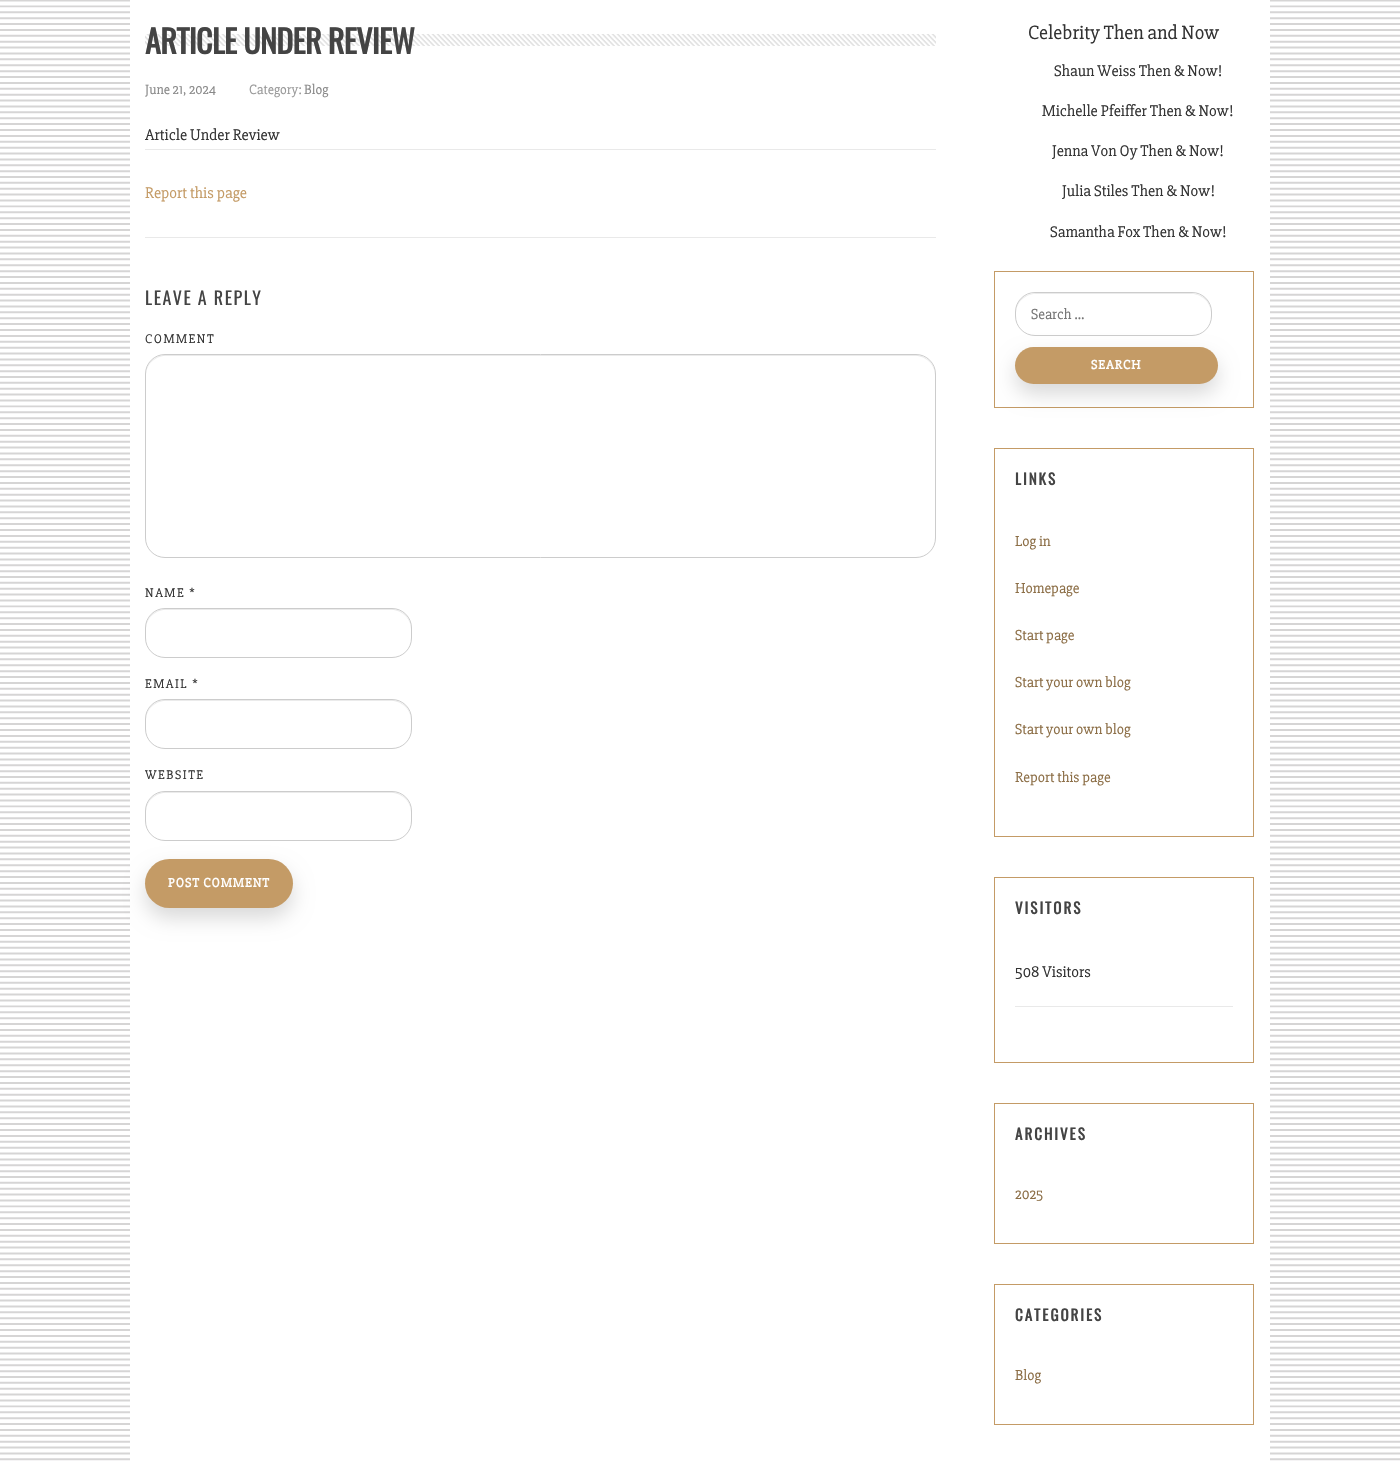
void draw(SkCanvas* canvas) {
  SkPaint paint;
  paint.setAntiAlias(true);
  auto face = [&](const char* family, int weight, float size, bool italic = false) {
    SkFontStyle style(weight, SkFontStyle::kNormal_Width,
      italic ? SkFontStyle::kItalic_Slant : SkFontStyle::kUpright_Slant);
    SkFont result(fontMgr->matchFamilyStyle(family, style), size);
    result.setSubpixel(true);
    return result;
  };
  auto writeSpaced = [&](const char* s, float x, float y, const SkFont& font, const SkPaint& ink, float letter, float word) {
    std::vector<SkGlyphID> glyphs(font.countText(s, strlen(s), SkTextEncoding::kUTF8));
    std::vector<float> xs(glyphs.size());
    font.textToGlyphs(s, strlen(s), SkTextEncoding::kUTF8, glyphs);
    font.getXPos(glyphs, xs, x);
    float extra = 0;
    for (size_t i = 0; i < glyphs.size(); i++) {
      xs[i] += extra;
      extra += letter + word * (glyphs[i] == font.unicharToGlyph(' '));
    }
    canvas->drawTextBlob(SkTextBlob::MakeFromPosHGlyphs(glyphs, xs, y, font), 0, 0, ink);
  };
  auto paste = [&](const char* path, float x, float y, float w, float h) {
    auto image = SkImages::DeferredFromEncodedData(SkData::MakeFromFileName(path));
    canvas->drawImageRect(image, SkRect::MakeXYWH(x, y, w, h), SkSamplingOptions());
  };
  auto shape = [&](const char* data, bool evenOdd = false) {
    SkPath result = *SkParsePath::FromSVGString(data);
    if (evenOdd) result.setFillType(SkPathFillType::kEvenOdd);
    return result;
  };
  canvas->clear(0xffffffff);
  paste("img/1.png", 0, 0, 1400, 1461);
  paint.setColor(0xffffffff);
  canvas->drawRect(SkRect::MakeXYWH(130, 0, 1140, 1461), paint);
  paste("img/2.png", 145, 34, 791, 12);
  paint.setColor(0xffe9e9e9);
  canvas->drawRect(SkRect::MakeXYWH(145, 149, 791, 1), paint);
  canvas->drawRect(SkRect::MakeXYWH(145, 237, 791, 1), paint);
  paint.setColor(0xffebebeb);
  canvas->drawPath(shape("M165 356H916C926 356 935 365 935 375V374C935 364 926 355 916 355H165C155 355 146 364 146 374V375C146 365 155 356 165 356Z"), paint);
  paint.setStroke(true);
  paint.setStrokeWidth(1);
  paint.setColor(0xffcccccc);
  canvas->drawRoundRect(SkRect::MakeXYWH(145.5f, 354.5f, 790, 203), 19.5f, 19.5f, paint);
  paint.setStroke(false);
  paint.setColor(0xffebebeb);
  canvas->drawPath(shape("M165 610H392C402 610 411 619 411 629V628C411 618 402 609 392 609H165C155 609 146 618 146 628V629C146 619 155 610 165 610Z"), paint);
  paint.setStroke(true);
  paint.setColor(0xffcccccc);
  canvas->drawRoundRect(SkRect::MakeXYWH(145.5f, 608.5f, 266, 49), 19.5f, 19.5f, paint);
  paint.setStroke(false);
  paint.setColor(0xffebebeb);
  canvas->drawPath(shape("M165 701H392C402 701 411 710 411 720V719C411 709 402 700 392 700H165C155 700 146 709 146 719V720C146 710 155 701 165 701Z"), paint);
  paint.setStroke(true);
  paint.setColor(0xffcccccc);
  canvas->drawRoundRect(SkRect::MakeXYWH(145.5f, 699.5f, 266, 49), 19.5f, 19.5f, paint);
  paint.setStroke(false);
  paint.setColor(0xffebebeb);
  canvas->drawPath(shape("M165 793H392C402 793 411 802 411 812V811C411 801 402 792 392 792H165C155 792 146 801 146 811V812C146 802 155 793 165 793Z"), paint);
  paint.setStroke(true);
  paint.setColor(0xffcccccc);
  canvas->drawRoundRect(SkRect::MakeXYWH(145.5f, 791.5f, 266, 49), 19.5f, 19.5f, paint);
  paint.setStroke(false);
  paint.setColor(0x26010101);
  paint.setMaskFilter(SkMaskFilter::MakeBlur(kNormal_SkBlurStyle, 10));
  canvas->drawRoundRect(SkRect::MakeXYWH(145, 869, 148, 49), 24.5f, 24.5f, paint);
  paint.setMaskFilter(nullptr);
  paint.setColor(0xffc49b66);
  canvas->drawRoundRect(SkRect::MakeXYWH(145, 859, 148, 49), 24.5f, 24.5f, paint);
  paint.setStroke(true);
  canvas->drawRect(SkRect::MakeXYWH(994.5f, 271.5f, 259, 136), paint);
  paint.setStroke(false);
  paint.setColor(0xffebebeb);
  canvas->drawPath(shape("M1035 294H1192C1202 294 1211 303 1211 313C1211 288 1182 293 1166 293H1061C1045 293 1016 288 1016 313C1016 303 1025 294 1035 294Z"), paint);
  paint.setStroke(true);
  paint.setColor(0xffcccccc);
  canvas->drawRoundRect(SkRect::MakeXYWH(1015.5f, 292.5f, 196, 43), 19.5f, 19.5f, paint);
  paint.setStroke(false);
  paint.setColor(0x26010101);
  paint.setMaskFilter(SkMaskFilter::MakeBlur(kNormal_SkBlurStyle, 10));
  canvas->drawRoundRect(SkRect::MakeXYWH(1015, 357, 203, 37), 18.5f, 18.5f, paint);
  paint.setMaskFilter(nullptr);
  paint.setColor(0xffc49b66);
  canvas->drawRoundRect(SkRect::MakeXYWH(1015, 347, 203, 37), 18.5f, 18.5f, paint);
  paint.setStroke(true);
  canvas->drawRect(SkRect::MakeXYWH(994.5f, 448.5f, 259, 388), paint);
  canvas->drawRect(SkRect::MakeXYWH(994.5f, 877.5f, 259, 185), paint);
  paint.setStroke(false);
  paint.setColor(0xffe9e9e9);
  canvas->drawRect(SkRect::MakeXYWH(1015, 1006, 218, 1), paint);
  paint.setStroke(true);
  paint.setColor(0xffc49b66);
  canvas->drawRect(SkRect::MakeXYWH(994.5f, 1103.5f, 259, 140), paint);
  canvas->drawRect(SkRect::MakeXYWH(994.5f, 1284.5f, 259, 140), paint);
  auto f0 = face("Oswald", 700, 32);
  paint.setStroke(false);
  paint.setColor(0xff444444);
  writeSpaced("ARTICLE UNDER REVIEW", 145, 54, f0, paint, -0.6f, 0);
  auto f1 = face("Slabo 27px", 400, 14);
  paint.setColor(0xff888888);
  canvas->drawString("June 21, 2024", 145, 94, f1, paint);
  paint.setColor(0xff999999);
  canvas->drawString("Category:", 249, 94, f1, paint);
  paint.setColor(0xff888888);
  canvas->drawString("Blog", 304, 94, f1, paint);
  auto f2 = face("Slabo 27px", 400, 16);
  paint.setColor(0xff333333);
  canvas->drawString("Article Under Review", 145, 140, f2, paint);
  paint.setColor(0xffc49b66);
  canvas->drawString("Report this page", 145, 198, f2, paint);
  auto f3 = face("Oswald", 400, 18);
  paint.setColor(0xff444444);
  writeSpaced("LEAVE A REPLY", 145, 305, f3, paint, 1.5f, 0);
  auto f4 = face("Slabo 27px", 400, 13);
  paint.setColor(0xff333333);
  {
    const struct { const char* s; float x, y; } items[] = {
      {"COMMENT", 145, 343},
      {"NAME *", 145, 597},
      {"EMAIL *", 145, 688},
      {"WEBSITE", 145, 779},
    };
    for (auto [s, x, y] : items) {
      writeSpaced(s, x, y, f4, paint, 1.5f, 0);
    }
  }
  auto f5 = face("Slabo 27px", 700, 13);
  paint.setColor(0xffffffff);
  writeSpaced("POST COMMENT", 168, 887, f5, paint, 1, 0);
  auto f6 = face("Slabo 27px", 400, 20);
  paint.setColor(0xff333333);
  canvas->drawString("Celebrity Then and Now", 1028, 39, f6, paint);
  {
    const struct { const char* s; float x, y; } items[] = {
      {"Shaun Weiss Then & Now!", 1054, 76},
      {"Michelle Pfeiffer Then & Now!", 1042, 116},
      {"Jenna Von Oy Then & Now!", 1052, 156},
      {"Julia Stiles Then & Now!", 1062, 196},
      {"Samantha Fox Then & Now!", 1050, 237},
    };
    for (auto [s, x, y] : items) {
      canvas->drawString(s, x, y, f2, paint);
    }
  }
  auto f7 = face("Slabo 27px", 400, 15);
  paint.setColor(0xff757575);
  canvas->drawString("Search …", 1031, 319, f7, paint);
  paint.setColor(0xffffffff);
  writeSpaced("SEARCH", 1091, 369, f5, paint, 1, 0);
  auto f8 = face("Oswald", 700, 15);
  paint.setColor(0xff444444);
  writeSpaced("LINKS", 1015, 485, f8, paint, 2, 0);
  paint.setColor(0xff8c6e46);
  {
    const struct { const char* s; float x, y; } items[] = {
      {"Log in", 1015, 546},
      {"Homepage", 1015, 593},
      {"Start page", 1015, 640},
      {"Start your own blog", 1015, 687},
      {"Start your own blog", 1015, 734},
      {"Report this page", 1015, 782},
    };
    for (auto [s, x, y] : items) {
      canvas->drawString(s, x, y, f7, paint);
    }
  }
  paint.setColor(0xff444444);
  writeSpaced("VISITORS", 1015, 914, f8, paint, 2, 0);
  paint.setColor(0xff333333);
  canvas->drawString("508 Visitors", 1015, 977, f2, paint);
  paint.setColor(0xff444444);
  writeSpaced("ARCHIVES", 1015, 1140, f8, paint, 2, 0);
  paint.setColor(0xff8c6e46);
  canvas->drawString("2025", 1015, 1199, f7, paint);
  paint.setColor(0xff444444);
  writeSpaced("CATEGORIES", 1015, 1321, f8, paint, 2, 0);
  paint.setColor(0xff8c6e46);
  canvas->drawString("Blog", 1015, 1380, f7, paint);
}
